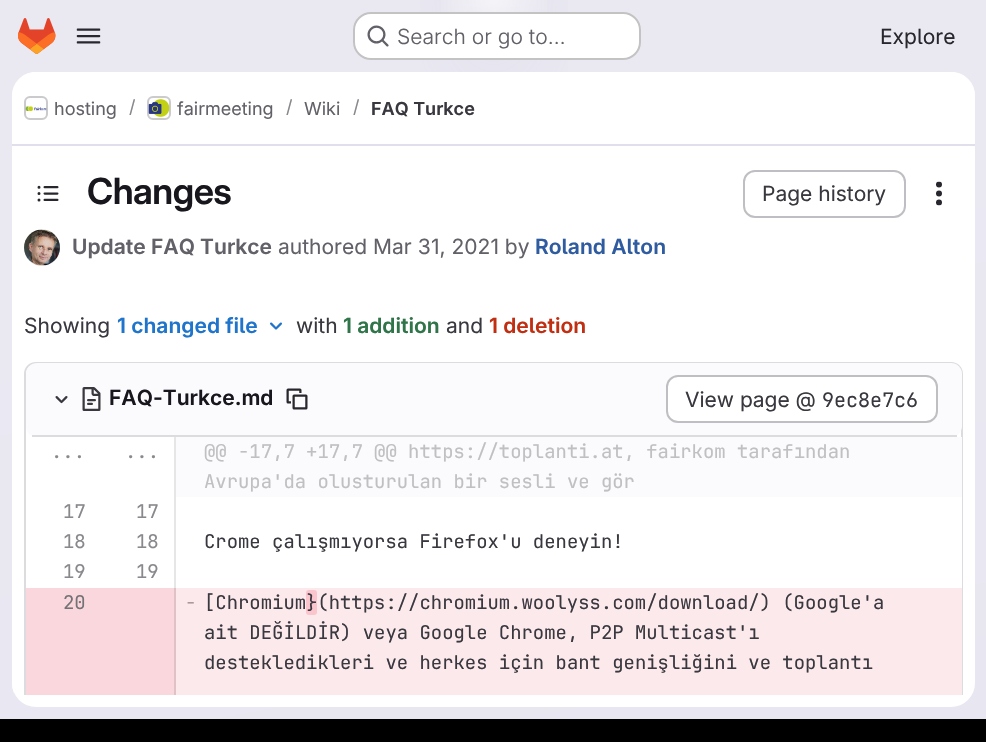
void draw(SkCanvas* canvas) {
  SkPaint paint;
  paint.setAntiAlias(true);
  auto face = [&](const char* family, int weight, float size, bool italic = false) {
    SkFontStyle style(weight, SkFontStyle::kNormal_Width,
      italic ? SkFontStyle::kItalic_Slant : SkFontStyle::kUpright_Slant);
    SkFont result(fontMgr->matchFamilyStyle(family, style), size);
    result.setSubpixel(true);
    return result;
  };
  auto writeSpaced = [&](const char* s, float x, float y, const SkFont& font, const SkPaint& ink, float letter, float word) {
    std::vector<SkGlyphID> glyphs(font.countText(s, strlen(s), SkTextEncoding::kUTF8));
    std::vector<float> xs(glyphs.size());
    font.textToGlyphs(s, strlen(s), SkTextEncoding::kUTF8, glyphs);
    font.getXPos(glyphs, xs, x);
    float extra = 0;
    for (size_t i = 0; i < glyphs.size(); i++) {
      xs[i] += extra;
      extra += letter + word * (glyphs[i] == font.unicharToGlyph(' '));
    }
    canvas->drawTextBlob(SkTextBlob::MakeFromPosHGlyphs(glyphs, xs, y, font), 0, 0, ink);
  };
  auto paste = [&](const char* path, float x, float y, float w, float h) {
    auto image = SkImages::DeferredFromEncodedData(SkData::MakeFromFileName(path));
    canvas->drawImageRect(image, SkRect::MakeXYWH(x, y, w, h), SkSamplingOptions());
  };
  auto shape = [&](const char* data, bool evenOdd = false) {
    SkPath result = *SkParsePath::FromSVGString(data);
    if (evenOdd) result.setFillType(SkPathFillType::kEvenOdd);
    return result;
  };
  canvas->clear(0xffffffff);
  {
    const SkColor colors[] = {0xffe8e6f0, 0xffeae9f2};
    const float stops[] = {0, 0.7f};
    const SkPoint ends[] = {{572, 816}, {415, -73}};
    paint.setShader(SkGradientShader::MakeLinear(ends, colors, stops, 2, SkTileMode::kClamp));
    paint.setAlpha(255);
  }
  canvas->drawRect(SkRect::MakeXYWH(0, 0, 986, 719), paint);
  {
    const SkColor colors[] = {0xffe4e2ed, 0x00e4e2ed};
    const float stops[] = {0, 0.21f};
    SkMatrix m = SkMatrix::Translate(494, 0).preScale(494, 743);
    paint.setShader(SkGradientShader::MakeRadial({0, 0}, 1, colors, stops, 2, SkTileMode::kClamp, 0, &m));
    paint.setAlpha(255);
  }
  canvas->drawRect(SkRect::MakeXYWH(420, 0, 148, 72), paint);
  {
    const SkColor colors[] = {0xffe4e2ec, 0x00e4e2ec};
    const float stops[] = {0, 0.15f};
    SkMatrix m = SkMatrix::Translate(494, 0).preScale(494, 743);
    paint.setShader(SkGradientShader::MakeRadial({0, 0}, 1, colors, stops, 2, SkTileMode::kClamp, 0, &m));
    paint.setAlpha(255);
  }
  canvas->drawRect(SkRect::MakeXYWH(468, 7, 52, 39), paint);
  {
    const SkColor colors[] = {0x99ffffff, 0x00ffffff};
    const float stops[] = {0, 0.07f};
    paint.setShader(SkGradientShader::MakeRadial({494, 0}, 892, colors, stops, 2, SkTileMode::kClamp));
    paint.setAlpha(255);
  }
  canvas->drawRect(SkRect::MakeXYWH(441, 0, 106, 12), paint);
  paste("img/1.png", 18, 18, 38, 36);
  paste("img/2.png", 76, 28, 25, 16);
  paint.setShader(nullptr);
  paint.setColor(0xffffffff);
  canvas->drawRoundRect(SkRect::MakeXYWH(353, 12, 288, 48), 18, 18, paint);
  paint.setStroke(true);
  paint.setStrokeWidth(2);
  paint.setColor(0x3d050506);
  canvas->drawRoundRect(SkRect::MakeXYWH(354, 13, 286, 46), 17, 17, paint);
  paste("img/3.png", 367, 25, 22, 22);
  paint.setStroke(false);
  paint.setColor(0xffffffff);
  canvas->drawRoundRect(SkRect::MakeXYWH(12, 72, 963, 635), 24, 24, paint);
  canvas->drawPath(shape("M36 72H951C964.5 72 975 82.5 975 96V146H12V96C12 82.5 22.5 72 36 72Z"), paint);
  paint.setColor(0xffe1dfec);
  canvas->drawRect(SkRect::MakeXYWH(12, 144, 963, 2), paint);
  paint.setStroke(true);
  paint.setColor(0xffdcdcde);
  canvas->drawRoundRect(SkRect::MakeXYWH(25, 97, 22, 22), 5, 5, paint);
  paste("img/4.png", 25, 106, 22, 5);
  paint.setColor(0x14050506);
  canvas->drawRoundRect(SkRect::MakeXYWH(25, 97, 22, 22), 5, 5, paint);
  paint.setColor(0xffdcdcde);
  canvas->drawRoundRect(SkRect::MakeXYWH(148, 97, 22, 22), 5, 5, paint);
  paste("img/5.png", 148, 99, 22, 18);
  paint.setColor(0x14050506);
  canvas->drawRoundRect(SkRect::MakeXYWH(148, 97, 22, 22), 5, 5, paint);
  canvas->save();
  canvas->clipPath(shape("M36 72H951C964.5 72 975 82.5 975 96V683C975 696.5 964.5 707 951 707H36C22.5 707 12 696.5 12 683V96C12 82.5 22.5 72 36 72Z"), true);
  paint.setStroke(false);
  paint.setColor(0xffffffff);
  canvas->drawRect(SkRect::MakeXYWH(12, 146, 2, 547), paint);
  canvas->restore();
  paste("img/6.png", 37, 185, 22, 17);
  paint.setStroke(true);
  paint.setColor(0xffbfbfc3);
  canvas->drawRoundRect(SkRect::MakeXYWH(744, 171, 161, 46), 11, 11, paint);
  paste("img/7.png", 936, 181, 6, 25);
  paint.setColor(0xffe8e7e9);
  canvas->drawCircle(42, 248, 17, paint);
  paste("img/8.png", 24, 229, 36, 37);
  paste("img/9.png", 270, 322, 12, 8);
  canvas->save();
  canvas->clipRect(SkRect::MakeXYWH(24, 146, 939, 549));
  paint.setStroke(false);
  paint.setColor(0xffdcdcde);
  canvas->drawPath(shape("M36 362C29 362 24 367 24 374V704L26 705V374C26 368 30 364 36 364H951C957 364 961 368 961 374V705L963 704V374C963 367 958 362 951 362Z"), paint);
  canvas->restore();
  paint.setColor(0xfffbfafd);
  canvas->drawRoundRect(SkRect::MakeXYWH(26, 363, 936, 74), 11, 11, paint);
  paint.setColor(0xffdcdcde);
  canvas->drawRect(SkRect::MakeXYWH(32, 435, 925, 2), paint);
  paste("img/10.png", 55, 396, 13, 8);
  paste("img/11.png", 82, 387, 19, 24);
  paste("img/12.png", 286, 388, 22, 22);
  paint.setColor(0xffffffff);
  canvas->drawRoundRect(SkRect::MakeXYWH(667, 376, 270, 46), 11, 11, paint);
  paint.setStroke(true);
  paint.setColor(0xffbfbfc3);
  canvas->drawRoundRect(SkRect::MakeXYWH(667, 376, 270, 46), 11, 11, paint);
  paint.setStroke(false);
  {
    const struct { float x, y, w, h; SkColor color; } items[] = {
      {961, 437, 1, 151, 0xffffffff},
      {174, 437, 2, 151, 0xffe6e6e6},
      {176, 437, 786, 60, 0xfffbfafd},
      {26, 588, 148, 107, 0xfff9d7dc},
      {174, 588, 2, 107, 0xffe0c2c6},
      {176, 588, 786, 107, 0xfffbe9eb},
    };
    for (auto [x, y, w, h, color] : items) {
      paint.setColor(color);
      canvas->drawRect(SkRect::MakeXYWH(x, y, w, h), paint);
    }
  }
  paint.setColor(0xfffac5cd);
  canvas->drawRoundRect(SkRect::MakeXYWH(306, 590, 11, 25), 3, 3, paint);
  paint.setColor(0xff000000);
  canvas->drawRect(SkRect::MakeXYWH(0, 719, 986, 23), paint);
  auto f0 = face("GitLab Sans", 300, 21);
  paint.setColor(0xff626168);
  canvas->drawString("Search or go to…", 397, 44, f0, paint);
  auto f1 = face("GitLab Sans", 400, 21);
  paint.setColor(0xff28272d);
  canvas->drawString("Explore", 880, 44, f1, paint);
  auto f2 = face("GitLab Sans", 400, 18);
  paint.setColor(0xff626168);
  canvas->drawString("hosting", 54, 115, f2, paint);
  paint.setColor(0xff89888d);
  canvas->drawString("/", 129, 113, f2, paint);
  paint.setColor(0xff626168);
  canvas->drawString("fairmeeting", 177, 115, f2, paint);
  paint.setColor(0xff89888d);
  canvas->drawString("/", 286, 113, f2, paint);
  paint.setColor(0xff626168);
  canvas->drawString("Wiki", 304, 115, f2, paint);
  paint.setColor(0xff89888d);
  canvas->drawString("/", 353, 113, f2, paint);
  auto f3 = face("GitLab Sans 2", 600, 18);
  paint.setColor(0xff3a383f);
  canvas->drawString("FAQ Turkce", 371, 115, f3, paint);
  auto f4 = face("GitLab Sans", 600, 36);
  paint.setColor(0xff18171d);
  writeSpaced("Changes", 87, 204, f4, paint, -0.5f, 0);
  paint.setColor(0xff3a383f);
  canvas->drawString("Page history", 762, 201, f1, paint);
  auto f5 = face("GitLab Sans 2", 600, 21);
  paint.setColor(0xff626168);
  canvas->drawString("Update FAQ Turkce", 72, 254, f5, paint);
  canvas->drawString("authored Mar 31, 2021 by", 278, 254, f1, paint);
  paint.setColor(0xff2f5ca0);
  canvas->drawString("Roland Alton", 535, 254, f5, paint);
  paint.setColor(0xff3a383f);
  canvas->drawString("Showing", 24, 333, f1, paint);
  paint.setColor(0xff1f75cb);
  canvas->drawString("1 changed file", 117, 333, f5, paint);
  paint.setColor(0xff3a383f);
  canvas->drawString("with", 296, 333, f1, paint);
  paint.setColor(0xff2f7549);
  canvas->drawString("1 addition", 343, 333, f5, paint);
  paint.setColor(0xff3a383f);
  canvas->drawString("and", 446, 333, f1, paint);
  paint.setColor(0xffc02f12);
  canvas->drawString("1 deletion", 489, 333, f5, paint);
  paint.setColor(0xff18171d);
  canvas->drawString("FAQ-Turkce.md", 109, 405, f5, paint);
  paint.setColor(0xff3a383f);
  canvas->drawString("View page @", 685, 407, f1, paint);
  auto f6 = face("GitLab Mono", 400, 20);
  canvas->drawString("9ec8e7c6", 822, 407, f6, paint);
  auto f7 = face("GitLab Mono", 400, 18.9f);
  paint.setColor(0xff89888d);
  canvas->drawString("...", 51, 458, f7, paint);
  canvas->drawString("...", 125, 458, f7, paint);
  paint.setColor(0xffc0bfc2);
  canvas->drawString("@@ -17,7 +17,7 @@ https://toplanti.at, fairkom tarafından", 204, 458, f7, paint);
  canvas->drawString("Avrupa'da olusturulan bir sesli ve gör", 204, 488, f7, paint);
  paint.setColor(0xff89888d);
  {
    const struct { const char* s; float x, y; } items[] = {
      {"17", 63, 518},
      {"17", 136, 518},
      {"18", 63, 548},
      {"18", 136, 548},
    };
    for (auto [s, x, y] : items) {
      canvas->drawString(s, x, y, f7, paint);
    }
  }
  paint.setColor(0xff3a383f);
  canvas->drawString("Crome çalışmıyorsa Firefox'u deneyin!", 204, 548, f7, paint);
  paint.setColor(0xff89888d);
  canvas->drawString("19", 63, 578, f7, paint);
  canvas->drawString("19", 136, 578, f7, paint);
  paint.setColor(0xff737276);
  canvas->drawString("20", 63, 609, f7, paint);
  paint.setColor(0xffae979a);
  canvas->drawString("-", 185, 609, f7, paint);
  paint.setColor(0xff3a383f);
  {
    const struct { const char* s; float x, y; } items[] = {
      {"[Chromium", 204, 609},
      {"}(https://chromium.woolyss.com/download/) (Google'a", 306, 609},
      {"ait DEĞİLDİR) veya Google Chrome, P2P Multicast'ı", 204, 639},
      {"destekledikleri ve herkes için bant genişliğini ve toplantı", 204, 669},
    };
    for (auto [s, x, y] : items) {
      canvas->drawString(s, x, y, f7, paint);
    }
  }
}
